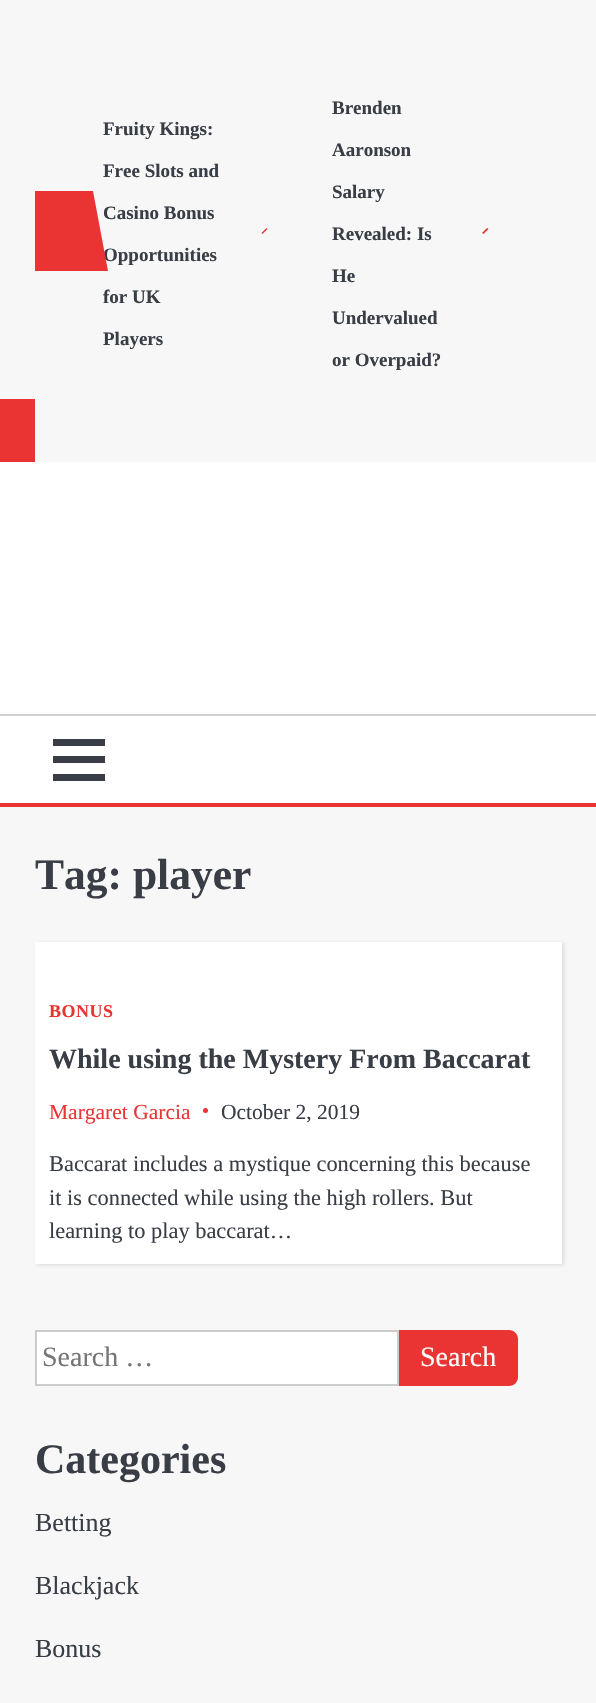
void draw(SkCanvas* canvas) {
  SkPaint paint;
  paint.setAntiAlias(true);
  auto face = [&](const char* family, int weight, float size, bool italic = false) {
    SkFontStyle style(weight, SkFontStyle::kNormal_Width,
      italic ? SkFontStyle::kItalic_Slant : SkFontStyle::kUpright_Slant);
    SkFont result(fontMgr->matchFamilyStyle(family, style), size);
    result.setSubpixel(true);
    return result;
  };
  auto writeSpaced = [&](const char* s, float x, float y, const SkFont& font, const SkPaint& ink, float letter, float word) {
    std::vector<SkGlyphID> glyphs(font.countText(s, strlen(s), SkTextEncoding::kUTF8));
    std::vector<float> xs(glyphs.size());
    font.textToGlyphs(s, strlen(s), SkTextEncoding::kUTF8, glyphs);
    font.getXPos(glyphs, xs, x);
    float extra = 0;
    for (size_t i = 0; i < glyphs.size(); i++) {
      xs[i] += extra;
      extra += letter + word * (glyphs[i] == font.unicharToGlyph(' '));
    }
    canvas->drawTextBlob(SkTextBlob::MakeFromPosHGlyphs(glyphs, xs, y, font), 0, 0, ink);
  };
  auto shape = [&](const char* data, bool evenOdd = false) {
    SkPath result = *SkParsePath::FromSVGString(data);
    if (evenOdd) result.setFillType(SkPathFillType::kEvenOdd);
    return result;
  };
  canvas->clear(0xfff7f7f7);
  paint.setColor(0xffea3333);
  canvas->drawPath(shape("M266.5 228L267.5 229L262.5 234L261.5 233Z"), paint);
  canvas->drawPath(shape("M487 228L488.5 229L483.5 234L482 233Z"), paint);
  {
    const struct { float x, y, w, h; SkColor color; } items[] = {
      {0, 399, 35, 63, 0xffea3333},
      {0, 462, 596, 252, 0xffffffff},
      {0, 716, 596, 87, 0xffffffff},
      {0, 714, 596, 2, 0xffd1d1d1},
      {0, 803, 596, 4, 0xffea3333},
      {53, 739, 52, 7, 0xff393e46},
      {53, 756, 52, 7, 0xff393e46},
      {53, 774, 52, 7, 0xff393e46},
    };
    for (auto [x, y, w, h, color] : items) {
      paint.setColor(color);
      canvas->drawRect(SkRect::MakeXYWH(x, y, w, h), paint);
    }
  }
  paint.setColor(0x478f8f8f);
  paint.setMaskFilter(SkMaskFilter::MakeBlur(kNormal_SkBlurStyle, 2));
  canvas->drawRect(SkRect::MakeXYWH(37, 943, 527, 322), paint);
  paint.setMaskFilter(nullptr);
  paint.setColor(0xffffffff);
  canvas->drawRect(SkRect::MakeXYWH(35, 942, 527, 322), paint);
  paint.setColor(0xffea3333);
  canvas->drawCircle(205.5f, 1110.5f, 2.5f, paint);
  paint.setColor(0xffffffff);
  canvas->drawRect(SkRect::MakeXYWH(36, 1331, 362, 54), paint);
  paint.setStroke(true);
  paint.setStrokeWidth(2);
  paint.setColor(0xffcccccc);
  canvas->drawRect(SkRect::MakeXYWH(36, 1331, 362, 54), paint);
  paint.setStroke(false);
  paint.setColor(0xffea3333);
  canvas->drawPath(shape("M399 1330H509C514 1330 518 1334 518 1339V1377C518 1382 514 1386 509 1386H399Z"), paint);
  auto f0 = face("Liberation Serif", 700, 19);
  paint.setColor(0xff393e46);
  {
    const struct { const char* s; float x, y; } items[] = {
      {"Fruity Kings:", 103, 135},
      {"Free Slots and", 103, 177},
      {"Casino Bonus", 103, 219},
      {"Opportunities", 103, 261},
    };
    for (auto [s, x, y] : items) {
      canvas->drawString(s, x, y, f0, paint);
    }
  }
  paint.setColor(0xffea3333);
  canvas->drawPath(shape("M35 191V271H108L93 191Z"), paint);
  paint.setColor(0xff393e46);
  {
    const struct { const char* s; float x, y; } items[] = {
      {"for UK", 103, 303},
      {"Players", 103, 345},
      {"Brenden", 332, 114},
      {"Aaronson", 332, 156},
      {"Salary", 332, 198},
      {"Revealed: Is", 332, 240},
      {"He", 332, 282},
      {"Undervalued", 332, 324},
      {"or Overpaid?", 332, 366},
    };
    for (auto [s, x, y] : items) {
      canvas->drawString(s, x, y, f0, paint);
    }
  }
  auto f1 = face("Liberation Serif", 700, 43.5f);
  canvas->drawString("Tag: player", 35, 889, f1, paint);
  auto f2 = face("Liberation Serif", 700, 18);
  paint.setColor(0xffea3333);
  writeSpaced("BONUS", 49, 1017, f2, paint, 0.5f, 0);
  auto f3 = face("Liberation Serif", 700, 28);
  paint.setColor(0xff393e46);
  canvas->drawString("While using the Mystery From Baccarat", 49, 1068, f3, paint);
  auto f4 = face("Liberation Serif", 400, 21.5f);
  paint.setColor(0xffea3333);
  canvas->drawString("Margaret Garcia", 49, 1119, f4, paint);
  paint.setColor(0xff393e46);
  canvas->drawString("October 2, 2019", 221, 1119, f4, paint);
  auto f5 = face("Liberation Serif", 400, 22.4f);
  {
    const struct { const char* s; float x, y; } items[] = {
      {"Baccarat includes a mystique concerning this because", 49, 1171},
      {"it is connected while using the high rollers. But", 49, 1205},
      {"learning to play baccarat…", 49, 1238},
    };
    for (auto [s, x, y] : items) {
      canvas->drawString(s, x, y, f5, paint);
    }
  }
  auto f6 = face("Liberation Serif", 400, 28);
  paint.setColor(0xff757575);
  canvas->drawString("Search …", 42, 1366, f6, paint);
  paint.setColor(0xffffffff);
  canvas->drawString("Search", 420, 1366, f6, paint);
  auto f7 = face("Liberation Serif", 700, 42);
  paint.setColor(0xff393e46);
  canvas->drawString("Categories", 35, 1473, f7, paint);
  auto f8 = face("Liberation Serif", 400, 26);
  {
    const struct { const char* s; float x, y; } items[] = {
      {"Betting", 35, 1531},
      {"Blackjack", 35, 1594},
      {"Bonus", 35, 1657},
    };
    for (auto [s, x, y] : items) {
      canvas->drawString(s, x, y, f8, paint);
    }
  }
}
